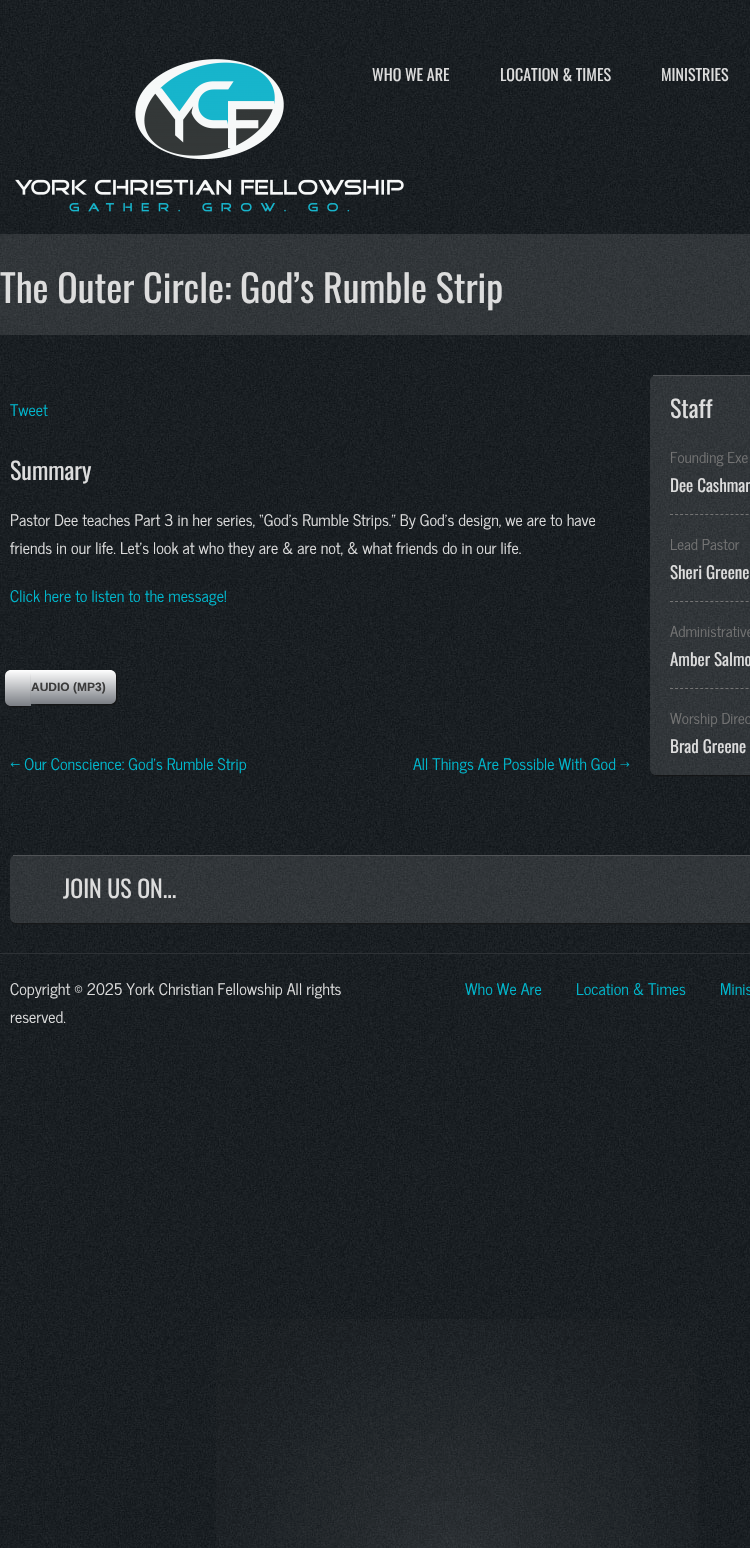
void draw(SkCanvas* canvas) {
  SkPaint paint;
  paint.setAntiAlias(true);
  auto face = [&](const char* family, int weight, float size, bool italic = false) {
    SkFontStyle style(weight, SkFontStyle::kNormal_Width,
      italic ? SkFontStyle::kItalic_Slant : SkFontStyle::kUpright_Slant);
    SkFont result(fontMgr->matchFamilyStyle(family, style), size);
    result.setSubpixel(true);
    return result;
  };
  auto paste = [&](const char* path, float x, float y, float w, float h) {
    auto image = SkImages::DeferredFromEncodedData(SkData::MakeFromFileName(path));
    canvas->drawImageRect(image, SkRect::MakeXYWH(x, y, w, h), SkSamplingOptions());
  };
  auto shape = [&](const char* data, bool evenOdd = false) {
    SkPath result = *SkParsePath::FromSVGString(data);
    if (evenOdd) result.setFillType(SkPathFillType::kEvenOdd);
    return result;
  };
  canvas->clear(0xffffffff);
  paste("img/1.png", 0, 0, 750, 1548);
  paste("img/2.png", 216, 1319, 482, 229);
  paste("img/3.png", 15, 59, 389, 153);
  paint.setColor(0x1affffff);
  canvas->drawRect(SkRect::MakeXYWH(0, 234, 750, 101), paint);
  paint.setColor(0xff111111);
  paint.setMaskFilter(SkMaskFilter::MakeBlur(kNormal_SkBlurStyle, 1));
  canvas->drawRoundRect(SkRect::MakeXYWH(6, 671, 26, 36), 6, 6, paint);
  paint.setMaskFilter(nullptr);
  {
    const SkColor colors[] = {0xffffffff, 0xff7a7e84};
    const float stops[] = {0, 1};
    const SkPoint ends[] = {{18, 670}, {18, 706}};
    paint.setShader(SkGradientShader::MakeLinear(ends, colors, stops, 2, SkTileMode::kClamp));
    paint.setAlpha(255);
  }
  canvas->drawPath(shape("M11 670H31V706H11C7.5 706 5 703.5 5 700V676C5 672.5 7.5 670 11 670Z"), paint);
  paint.setShader(nullptr);
  paint.setColor(0xff111111);
  paint.setMaskFilter(SkMaskFilter::MakeBlur(kNormal_SkBlurStyle, 1));
  canvas->drawRoundRect(SkRect::MakeXYWH(32, 671, 85, 34), 6, 6, paint);
  paint.setMaskFilter(nullptr);
  {
    const SkColor colors[] = {0xffffffff, 0xff7a7e84};
    const float stops[] = {0, 1};
    const SkPoint ends[] = {{74, 670}, {74, 704}};
    paint.setShader(SkGradientShader::MakeLinear(ends, colors, stops, 2, SkTileMode::kClamp));
    paint.setAlpha(255);
  }
  canvas->drawPath(shape("M31 670H110C113.5 670 116 672.5 116 676V698C116 701.5 113.5 704 110 704H31Z"), paint);
  canvas->save();
  canvas->clipPath(shape("M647 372H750V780H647ZM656 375H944C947.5 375 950 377.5 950 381V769C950 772.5 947.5 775 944 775H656C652.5 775 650 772.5 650 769V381C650 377.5 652.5 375 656 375Z", true), true);
  paint.setShader(nullptr);
  paint.setColor(0xff111111);
  paint.setMaskFilter(SkMaskFilter::MakeBlur(kNormal_SkBlurStyle, 1));
  canvas->drawRoundRect(SkRect::MakeXYWH(651, 376, 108, 400), 6, 6, paint);
  paint.setMaskFilter(nullptr);
  canvas->restore();
  paint.setColor(0x1affffff);
  canvas->drawRoundRect(SkRect::MakeXYWH(650, 375, 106, 400), 6, 6, paint);
  paint.setColor(0xff505356);
  canvas->drawRect(SkRect::MakeXYWH(653, 375, 97, 1), paint);
  paint.setStroke(true);
  paint.setStrokeWidth(1);
  paint.setColor(0xff747474);
  paint.setPathEffect(SkDashPathEffect::Make({{3, 2.04f}}, 0));
  canvas->drawPath(shape("M670 514.5H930"), paint);
  paint.setPathEffect(nullptr);
  paint.setPathEffect(SkDashPathEffect::Make({{3, 2.04f}}, 0));
  canvas->drawPath(shape("M670 601.5H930"), paint);
  paint.setPathEffect(nullptr);
  paint.setPathEffect(SkDashPathEffect::Make({{3, 2.04f}}, 0));
  canvas->drawPath(shape("M670 688.5H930"), paint);
  paint.setPathEffect(nullptr);
  canvas->save();
  canvas->clipPath(shape("M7 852H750V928H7ZM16 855H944C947.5 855 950 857.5 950 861V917C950 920.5 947.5 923 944 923H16C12.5 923 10 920.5 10 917V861C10 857.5 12.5 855 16 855Z", true), true);
  paint.setStroke(false);
  paint.setColor(0xff151515);
  paint.setMaskFilter(SkMaskFilter::MakeBlur(kNormal_SkBlurStyle, 1));
  canvas->drawRoundRect(SkRect::MakeXYWH(11, 856, 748, 68), 6, 6, paint);
  paint.setMaskFilter(nullptr);
  canvas->restore();
  paint.setColor(0x1affffff);
  canvas->drawRoundRect(SkRect::MakeXYWH(10, 855, 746, 68), 6, 6, paint);
  paint.setColor(0xff505356);
  canvas->drawRect(SkRect::MakeXYWH(13, 855, 737, 1), paint);
  paint.setColor(0xff2e3236);
  canvas->drawRect(SkRect::MakeXYWH(0, 953, 750, 1), paint);
  auto f0 = face("Oswald", 400, 16);
  paint.setColor(0xffdddddd);
  {
    const struct { const char* s; float x, y; } items[] = {
      {"WHO WE ARE", 372, 81},
      {"LOCATION & TIMES", 500, 81},
      {"MINISTRIES", 661, 81},
    };
    for (auto [s, x, y] : items) {
      canvas->drawString(s, x, y, f0, paint);
    }
  }
  auto f1 = face("Oswald", 400, 38);
  canvas->drawString("The Outer Circle: God’s Rumble Strip", 0, 303, f1, paint);
  auto f2 = face("News Cycle", 400, 16);
  paint.setColor(0xff00b8ce);
  canvas->drawString("Tweet", 10, 416, f2, paint);
  auto f3 = face("Oswald", 400, 24);
  paint.setColor(0xffdddddd);
  canvas->drawString("Summary", 10, 480, f3, paint);
  canvas->drawString("Pastor Dee teaches Part 3 in her series, “God’s Rumble Strips.” By God’s design, we are to have", 10, 526, f2, paint);
  canvas->drawString("friends in our life. Let’s look at who they are & are not, & what friends do in our life.", 10, 554, f2, paint);
  paint.setColor(0xff00b8ce);
  canvas->drawString("Click here to listen to the message!", 10, 602, f2, paint);
  auto f4 = face("Liberation Sans", 700, 12);
  paint.setColor(0xff3b3b3b);
  canvas->drawString("AUDIO (MP3)", 31, 691, f4, paint);
  paint.setColor(0xff00b8ce);
  canvas->drawString("← Our Conscience: God’s Rumble Strip", 10, 770, f2, paint);
  canvas->drawString("All Things Are Possible With God →", 413, 770, f2, paint);
  paint.setColor(0xffdddddd);
  canvas->drawString("Staff", 670, 418, f3, paint);
  auto f5 = face("News Cycle", 400, 15);
  paint.setColor(0xff747474);
  canvas->drawString("Founding Exe", 670, 463, f5, paint);
  auto f6 = face("Oswald", 400, 17);
  paint.setColor(0xffdddddd);
  canvas->drawString("Dee Cashman", 670, 492, f6, paint);
  paint.setColor(0xff747474);
  canvas->drawString("Lead Pastor", 670, 550, f5, paint);
  paint.setColor(0xffdddddd);
  canvas->drawString("Sheri Greene", 670, 579, f6, paint);
  paint.setColor(0xff747474);
  canvas->drawString("Administrative", 670, 637, f5, paint);
  paint.setColor(0xffdddddd);
  canvas->drawString("Amber Salmo", 670, 666, f6, paint);
  paint.setColor(0xff747474);
  canvas->drawString("Worship Direc", 670, 724, f5, paint);
  paint.setColor(0xffdddddd);
  canvas->drawString("Brad Greene", 670, 753, f6, paint);
  canvas->drawString("JOIN US ON...", 63, 898, f3, paint);
  canvas->drawString("Copyright © 2025 York Christian Fellowship All rights", 10, 995, f2, paint);
  canvas->drawString("reserved.", 10, 1023, f2, paint);
  paint.setColor(0xff00b8ce);
  {
    const struct { const char* s; float x, y; } items[] = {
      {"Who We Are", 465, 995},
      {"Location & Times", 576, 995},
      {"Minis", 720, 995},
    };
    for (auto [s, x, y] : items) {
      canvas->drawString(s, x, y, f2, paint);
    }
  }
}
